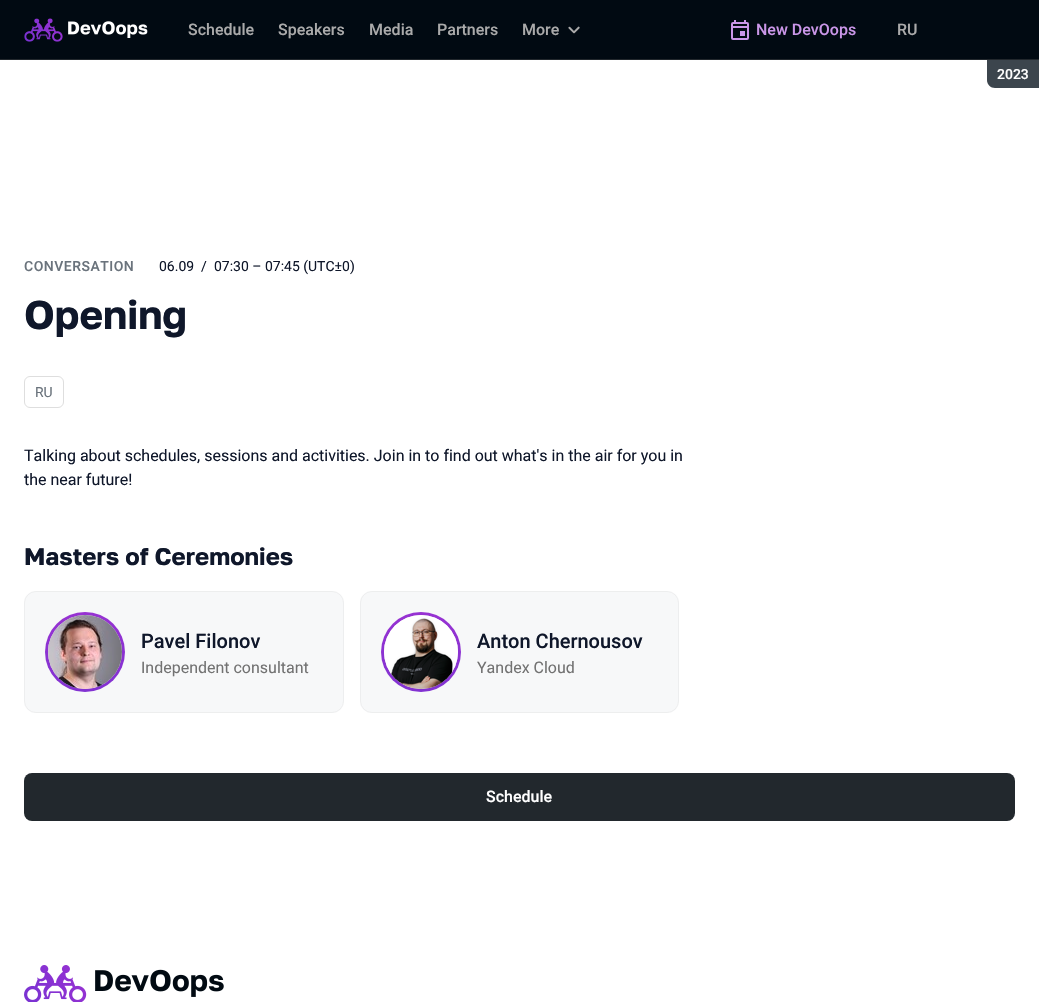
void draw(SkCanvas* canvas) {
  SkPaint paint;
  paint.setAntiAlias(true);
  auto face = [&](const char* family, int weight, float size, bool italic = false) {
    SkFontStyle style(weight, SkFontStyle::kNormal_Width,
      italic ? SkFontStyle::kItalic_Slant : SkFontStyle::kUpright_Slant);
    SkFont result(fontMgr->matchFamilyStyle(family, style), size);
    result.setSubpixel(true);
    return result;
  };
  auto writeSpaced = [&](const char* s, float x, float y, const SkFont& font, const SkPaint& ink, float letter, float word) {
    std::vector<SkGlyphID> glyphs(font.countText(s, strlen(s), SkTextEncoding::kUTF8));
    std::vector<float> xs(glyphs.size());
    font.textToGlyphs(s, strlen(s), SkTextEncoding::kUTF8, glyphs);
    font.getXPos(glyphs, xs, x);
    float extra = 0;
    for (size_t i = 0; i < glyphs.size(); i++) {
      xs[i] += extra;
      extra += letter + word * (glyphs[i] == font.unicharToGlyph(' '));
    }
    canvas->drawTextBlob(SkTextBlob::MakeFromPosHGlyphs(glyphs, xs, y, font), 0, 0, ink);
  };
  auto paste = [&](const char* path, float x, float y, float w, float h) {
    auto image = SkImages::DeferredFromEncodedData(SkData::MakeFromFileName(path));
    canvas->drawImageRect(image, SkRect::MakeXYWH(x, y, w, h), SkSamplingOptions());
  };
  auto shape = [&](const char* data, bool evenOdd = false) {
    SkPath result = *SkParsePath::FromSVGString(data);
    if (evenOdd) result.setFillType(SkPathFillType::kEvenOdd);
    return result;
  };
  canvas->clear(0xffffffff);
  paint.setColor(0xff010a12);
  canvas->drawRect(SkRect::MakeXYWH(0, 0, 1039, 59), paint);
  paste("img/1.png", 24, 18, 124, 24);
  paste("img/2.png", 568, 26, 12, 8);
  paste("img/3.png", 731, 20, 18, 20);
  paint.setColor(0xff3c454d);
  canvas->drawPath(shape("M987 60H1039V88H995C990.5 88 987 84.5 987 80Z"), paint);
  paint.setColor(0xff22282d);
  canvas->drawRect(SkRect::MakeXYWH(0, 59, 1039, 1), paint);
  paint.setStroke(true);
  paint.setStrokeWidth(1);
  paint.setColor(0xffdedede);
  canvas->drawRoundRect(SkRect::MakeXYWH(24.5f, 376.5f, 39, 31), 5.5f, 5.5f, paint);
  paint.setStroke(false);
  paint.setColor(0xfff7f8f9);
  canvas->drawRoundRect(SkRect::MakeXYWH(24, 591, 320, 122), 12, 12, paint);
  paint.setStroke(true);
  paint.setColor(0x47d3d3d3);
  canvas->drawRoundRect(SkRect::MakeXYWH(24.5f, 591.5f, 319, 121), 11.5f, 11.5f, paint);
  paint.setStroke(false);
  {
    const SkColor colors[] = {0xff9732d2, 0xff8232d2};
    const float stops[] = {0, 1};
    const SkPoint ends[] = {{85, 612}, {85, 692}};
    paint.setShader(SkGradientShader::MakeLinear(ends, colors, stops, 2, SkTileMode::kClamp));
    paint.setAlpha(255);
  }
  canvas->drawCircle(85, 652, 40, paint);
  paint.setShader(nullptr);
  paint.setColor(0xfff1f1f1);
  canvas->drawCircle(85, 652, 37, paint);
  paste("img/4.png", 48, 615, 74, 74);
  paint.setColor(0xfff7f8f9);
  canvas->drawRoundRect(SkRect::MakeXYWH(360, 591, 319, 122), 12, 12, paint);
  paint.setStroke(true);
  paint.setColor(0x47d3d3d3);
  canvas->drawRoundRect(SkRect::MakeXYWH(360.5f, 591.5f, 318, 121), 11.5f, 11.5f, paint);
  paint.setStroke(false);
  {
    const SkColor colors[] = {0xff9732d2, 0xff8232d2};
    const float stops[] = {0, 1};
    const SkPoint ends[] = {{421, 612}, {421, 692}};
    paint.setShader(SkGradientShader::MakeLinear(ends, colors, stops, 2, SkTileMode::kClamp));
    paint.setAlpha(255);
  }
  canvas->drawCircle(421, 652, 40, paint);
  paint.setShader(nullptr);
  paint.setColor(0xfff1f1f1);
  canvas->drawCircle(421, 652, 37, paint);
  paste("img/5.png", 384, 615, 74, 74);
  paint.setColor(0xff22282d);
  canvas->drawRoundRect(SkRect::MakeXYWH(24, 773, 991, 48), 8, 8, paint);
  paste("img/6.png", 24, 965, 200, 37);
  auto f0 = face("Roboto", 500, 16);
  paint.setColor(0xffaaaaaa);
  {
    const struct { const char* s; float x, y; } items[] = {
      {"Schedule", 188, 35},
      {"Speakers", 278, 35},
      {"Media", 369, 35},
      {"Partners", 437, 35},
      {"More", 522, 35},
    };
    for (auto [s, x, y] : items) {
      canvas->drawString(s, x, y, f0, paint);
    }
  }
  paint.setColor(0xffca96e8);
  canvas->drawString("New DevOops", 756, 35, f0, paint);
  auto f1 = face("Roboto", 500, 14);
  paint.setColor(0xffffffff);
  canvas->drawString("2023", 997, 79, f1, paint);
  paint.setColor(0xffaaaaaa);
  canvas->drawString("RU", 897, 35, f0, paint);
  paint.setColor(0xff6a737c);
  writeSpaced("CONVERSATION", 24, 271, f1, paint, 0.5f, 0);
  auto f2 = face("Roboto", 400, 14);
  paint.setColor(0xff0f172a);
  {
    const struct { const char* s; float x, y; } items[] = {
      {"06.09", 159, 271},
      {"/", 201, 271},
      {"07:30 – 07:45 (UTC±0)", 214, 271},
    };
    for (auto [s, x, y] : items) {
      canvas->drawString(s, x, y, f2, paint);
    }
  }
  auto f3 = face("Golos", 700, 40);
  canvas->drawString("Opening", 24, 329, f3, paint);
  paint.setColor(0xff6a737c);
  canvas->drawString("RU", 35, 397, f2, paint);
  auto f4 = face("Roboto", 400, 16);
  paint.setColor(0xff0f172a);
  canvas->drawString("Talking about schedules, sessions and activities. Join in to find out what's in the air for you in", 24, 461, f4, paint);
  canvas->drawString("the near future!", 24, 485, f4, paint);
  auto f5 = face("Golos", 700, 24);
  canvas->drawString("Masters of Ceremonies", 24, 565, f5, paint);
  auto f6 = face("Roboto", 500, 20);
  canvas->drawString("Pavel Filonov", 141, 648, f6, paint);
  paint.setColor(0xff727272);
  canvas->drawString("Independent consultant", 141, 673, f4, paint);
  paint.setColor(0xff0f172a);
  canvas->drawString("Anton Chernousov", 477, 648, f6, paint);
  paint.setColor(0xff727272);
  canvas->drawString("Yandex Cloud", 477, 673, f4, paint);
  paint.setColor(0xffffffff);
  canvas->drawString("Schedule", 486, 802, f0, paint);
}
